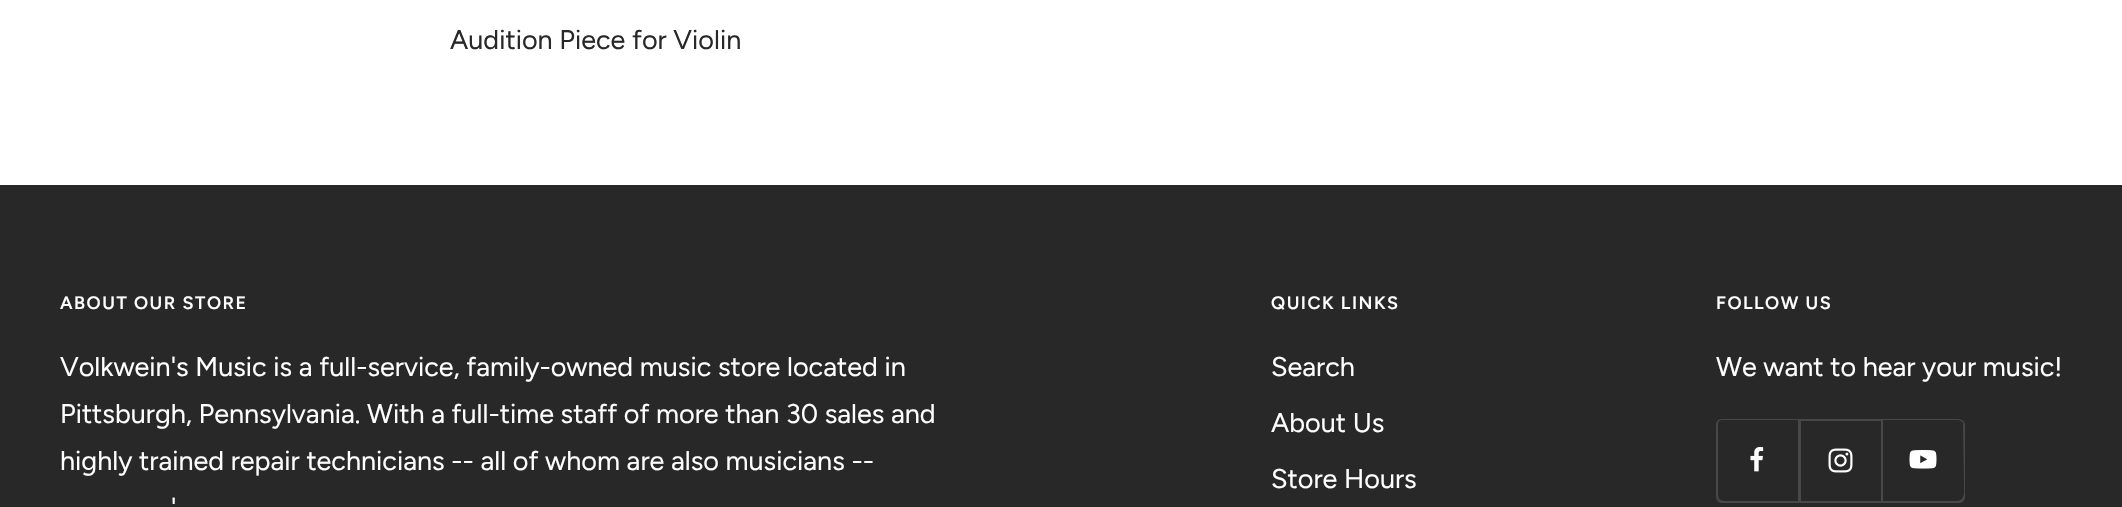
void draw(SkCanvas* canvas) {
  SkPaint paint;
  paint.setAntiAlias(true);
  auto face = [&](const char* family, int weight, float size, bool italic = false) {
    SkFontStyle style(weight, SkFontStyle::kNormal_Width,
      italic ? SkFontStyle::kItalic_Slant : SkFontStyle::kUpright_Slant);
    SkFont result(fontMgr->matchFamilyStyle(family, style), size);
    result.setSubpixel(true);
    return result;
  };
  auto writeSpaced = [&](const char* s, float x, float y, const SkFont& font, const SkPaint& ink, float letter, float word) {
    std::vector<SkGlyphID> glyphs(font.countText(s, strlen(s), SkTextEncoding::kUTF8));
    std::vector<float> xs(glyphs.size());
    font.textToGlyphs(s, strlen(s), SkTextEncoding::kUTF8, glyphs);
    font.getXPos(glyphs, xs, x);
    float extra = 0;
    for (size_t i = 0; i < glyphs.size(); i++) {
      xs[i] += extra;
      extra += letter + word * (glyphs[i] == font.unicharToGlyph(' '));
    }
    canvas->drawTextBlob(SkTextBlob::MakeFromPosHGlyphs(glyphs, xs, y, font), 0, 0, ink);
  };
  auto paste = [&](const char* path, float x, float y, float w, float h) {
    auto image = SkImages::DeferredFromEncodedData(SkData::MakeFromFileName(path));
    canvas->drawImageRect(image, SkRect::MakeXYWH(x, y, w, h), SkSamplingOptions());
  };
  auto shape = [&](const char* data, bool evenOdd = false) {
    SkPath result = *SkParsePath::FromSVGString(data);
    if (evenOdd) result.setFillType(SkPathFillType::kEvenOdd);
    return result;
  };
  canvas->clear(0xffffffff);
  paint.setColor(0xff282828);
  canvas->drawRect(SkRect::MakeXYWH(0, 185, 2122, 322), paint);
  paint.setColor(0xff484848);
  canvas->drawPath(shape("M1719 500C1720 502 1722 503 1724 503H1800V420H1798V501H1722Z"), paint);
  canvas->drawPath(shape("M1716 495V497C1716 500 1719 503 1722 503H1799V420H1798V501H1722C1719 501 1716 498 1716 495Z"), paint);
  canvas->drawPath(shape("M1722 420H1798V501H1799V419H1722C1719 419 1716 422 1716 425V426C1716 423 1719 420 1722 420Z"), paint);
  canvas->drawPath(shape("M1720 419C1718 420 1716 422 1716 425V495C1716 498 1719 501 1722 501H1724C1720 501 1718 498 1718 495V424C1718 422 1719 420 1720 419Z"), paint);
  paste("img/1.png", 1750, 447, 14, 25);
  canvas->drawPath(shape("M1800 501V503H1883V420H1881V501Z"), paint);
  {
    const struct { float x, y, w, h; SkColor color; } items[] = {
      {1881, 419, 2, 1, 0xff484848},
      {1799, 419, 82, 2, 0xff484848},
      {1800, 419, 1, 82, 0xff484848},
    };
    for (auto [x, y, w, h, color] : items) {
      paint.setColor(color);
      canvas->drawRect(SkRect::MakeXYWH(x, y, w, h), paint);
    }
  }
  paste("img/2.png", 1828, 448, 25, 25);
  canvas->drawPath(shape("M1883 501V503H1959C1962 503 1965 500 1965 497V426C1965 424 1964 422 1962 421C1963 422 1964 423 1964 424V495C1964 498 1961 501 1958 501Z"), paint);
  canvas->drawPath(shape("M1881 501V503H1958C1961 503 1964 500 1964 497V426L1963 423L1964 483C1964 487 1966 499 1959 501Z"), paint);
  canvas->drawPath(shape("M1958 501H1959C1962 501 1965 498 1965 495V425C1965 422 1963 420 1960 419C1962 420 1964 422 1964 424V495C1964 498 1961 501 1958 501Z"), paint);
  canvas->drawPath(shape("M1881 420H1958C1961 420 1964 423 1964 426V425C1964 422 1961 419 1958 419H1881Z"), paint);
  paste("img/3.png", 1909, 450, 28, 19);
  auto f0 = face("Figtree", 400, 27);
  paint.setColor(0xff282828);
  canvas->drawString("Audition Piece for Violin", 450, 49, f0, paint);
  auto f1 = face("Figtree", 600, 18);
  paint.setColor(0xffffffff);
  writeSpaced("ABOUT OUR STORE", 60, 309, f1, paint, 1.5f, 0);
  {
    const struct { const char* s; float x, y; } items[] = {
      {"Volkwein's Music is a full-service, family-owned music store located in", 60, 376},
      {"Pittsburgh, Pennsylvania. With a full-time staff of more than 30 sales and", 60, 423},
      {"highly trained repair technicians -- all of whom are also musicians --", 60, 470},
      {"'", 171, 517},
    };
    for (auto [s, x, y] : items) {
      canvas->drawString(s, x, y, f0, paint);
    }
  }
  writeSpaced("QUICK LINKS", 1271, 309, f1, paint, 1.5f, 0);
  {
    const struct { const char* s; float x, y; } items[] = {
      {"Search", 1271, 376},
      {"About Us", 1271, 432},
      {"Store Hours", 1271, 488},
    };
    for (auto [s, x, y] : items) {
      canvas->drawString(s, x, y, f0, paint);
    }
  }
  writeSpaced("FOLLOW US", 1716, 309, f1, paint, 1.5f, 0);
  canvas->drawString("We want to hear your music!", 1716, 376, f0, paint);
}
